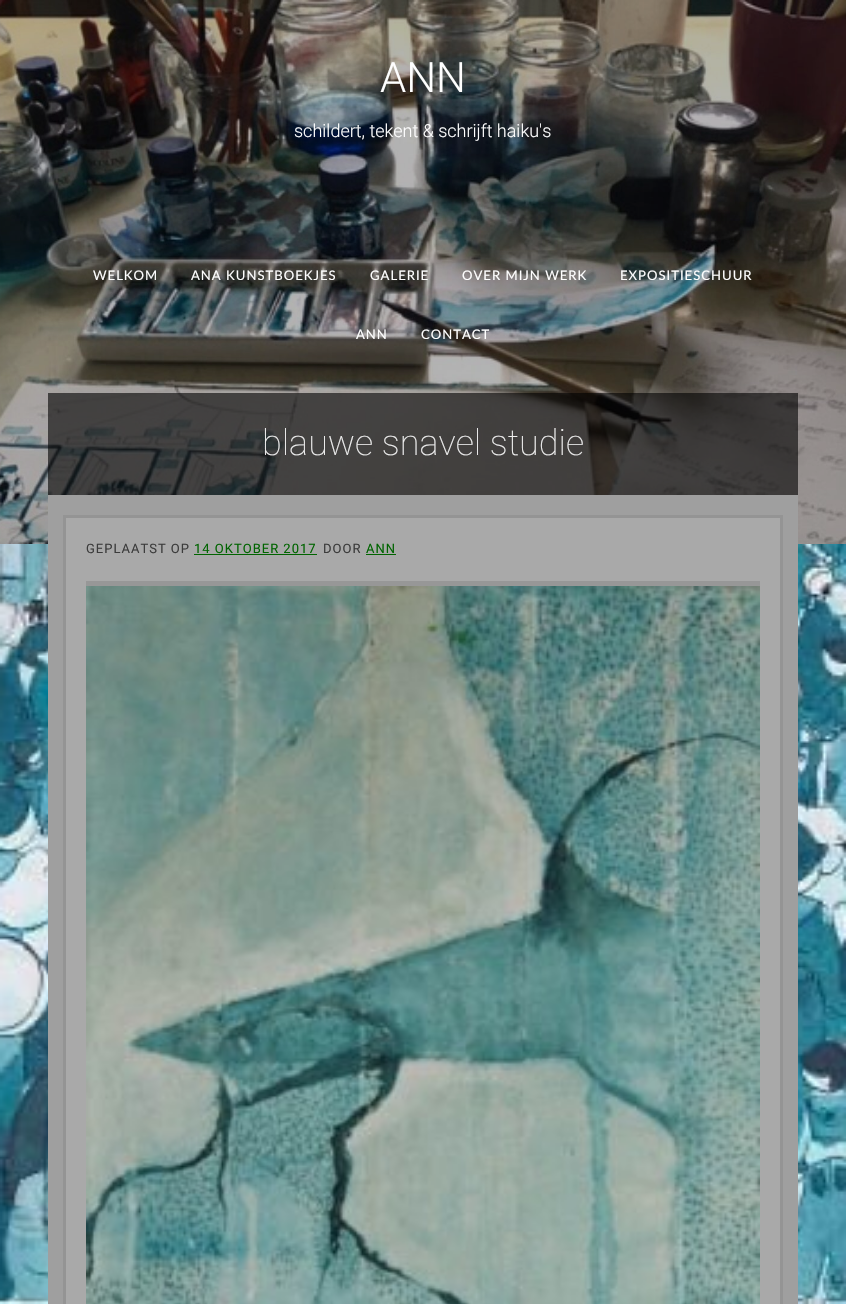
void draw(SkCanvas* canvas) {
  SkPaint paint;
  paint.setAntiAlias(true);
  auto face = [&](const char* family, int weight, float size, bool italic = false) {
    SkFontStyle style(weight, SkFontStyle::kNormal_Width,
      italic ? SkFontStyle::kItalic_Slant : SkFontStyle::kUpright_Slant);
    SkFont result(fontMgr->matchFamilyStyle(family, style), size);
    result.setSubpixel(true);
    return result;
  };
  auto writeSpaced = [&](const char* s, float x, float y, const SkFont& font, const SkPaint& ink, float letter, float word) {
    std::vector<SkGlyphID> glyphs(font.countText(s, strlen(s), SkTextEncoding::kUTF8));
    std::vector<float> xs(glyphs.size());
    font.textToGlyphs(s, strlen(s), SkTextEncoding::kUTF8, glyphs);
    font.getXPos(glyphs, xs, x);
    float extra = 0;
    for (size_t i = 0; i < glyphs.size(); i++) {
      xs[i] += extra;
      extra += letter + word * (glyphs[i] == font.unicharToGlyph(' '));
    }
    canvas->drawTextBlob(SkTextBlob::MakeFromPosHGlyphs(glyphs, xs, y, font), 0, 0, ink);
  };
  auto paste = [&](const char* path, float x, float y, float w, float h) {
    auto image = SkImages::DeferredFromEncodedData(SkData::MakeFromFileName(path));
    canvas->drawImageRect(image, SkRect::MakeXYWH(x, y, w, h), SkSamplingOptions());
  };
  canvas->clear(0xffffffff);
  paste("img/1.png", 0, 544, 846, 760);
  paste("img/2.png", 0, 0, 846, 544);
  paint.setColor(0x99000000);
  canvas->drawRect(SkRect::MakeXYWH(48, 393, 750, 102), paint);
  paint.setColor(0xff9f9f9f);
  canvas->drawRect(SkRect::MakeXYWH(48, 495, 750, 809), paint);
  paint.setColor(0xffa9a9a9);
  canvas->drawRect(SkRect::MakeXYWH(64.5f, 516.5f, 717, 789), paint);
  paint.setStroke(true);
  paint.setStrokeWidth(3);
  paint.setColor(0xff949494);
  canvas->drawRect(SkRect::MakeXYWH(64.5f, 516.5f, 717, 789), paint);
  paint.setStroke(false);
  {
    const struct { float x, y, w, h; SkColor color; } items[] = {
      {194, 554, 123, 1, 0xff006400},
      {366, 554, 30, 1, 0xff006400},
      {86, 581, 674, 5, 0xff979797},
    };
    for (auto [x, y, w, h, color] : items) {
      paint.setColor(color);
      canvas->drawRect(SkRect::MakeXYWH(x, y, w, h), paint);
    }
  }
  paste("img/3.png", 86, 586, 674, 718);
  auto f0 = face("Roboto", 300, 42);
  paint.setColor(0xffffffff);
  canvas->drawString("ANN", 380, 92, f0, paint);
  auto f1 = face("Roboto", 300, 18);
  canvas->drawString("schildert, tekent & schrijft haiku's", 294, 137, f1, paint);
  auto f2 = face("Lato", 400, 13.1f);
  {
    const struct { const char* s; float x, y; } items[] = {
      {"WELKOM", 93, 280},
      {"ANA KUNSTBOEKJES", 191, 280},
      {"GALERIE", 370, 280},
      {"OVER MIJN WERK", 462, 280},
      {"EXPOSITIESCHUUR", 620, 280},
      {"ANN", 356, 339},
      {"CONTACT", 421, 339},
    };
    for (auto [s, x, y] : items) {
      writeSpaced(s, x, y, f2, paint, 1, 0);
    }
  }
  auto f3 = face("Roboto", 100, 36);
  paint.setColor(0xffeeeeee);
  canvas->drawString("blauwe snavel studie", 262, 455, f3, paint);
  auto f4 = face("Roboto", 400, 13);
  paint.setColor(0xff3c3c3c);
  writeSpaced("GEPLAATST OP", 86, 553, f4, paint, 1, 0);
  paint.setColor(0xff006400);
  writeSpaced("14 OKTOBER 2017", 194, 553, f4, paint, 1, 0);
  paint.setColor(0xff3c3c3c);
  writeSpaced("DOOR", 323, 553, f4, paint, 1, 0);
  paint.setColor(0xff006400);
  writeSpaced("ANN", 366, 553, f4, paint, 1, 0);
}
